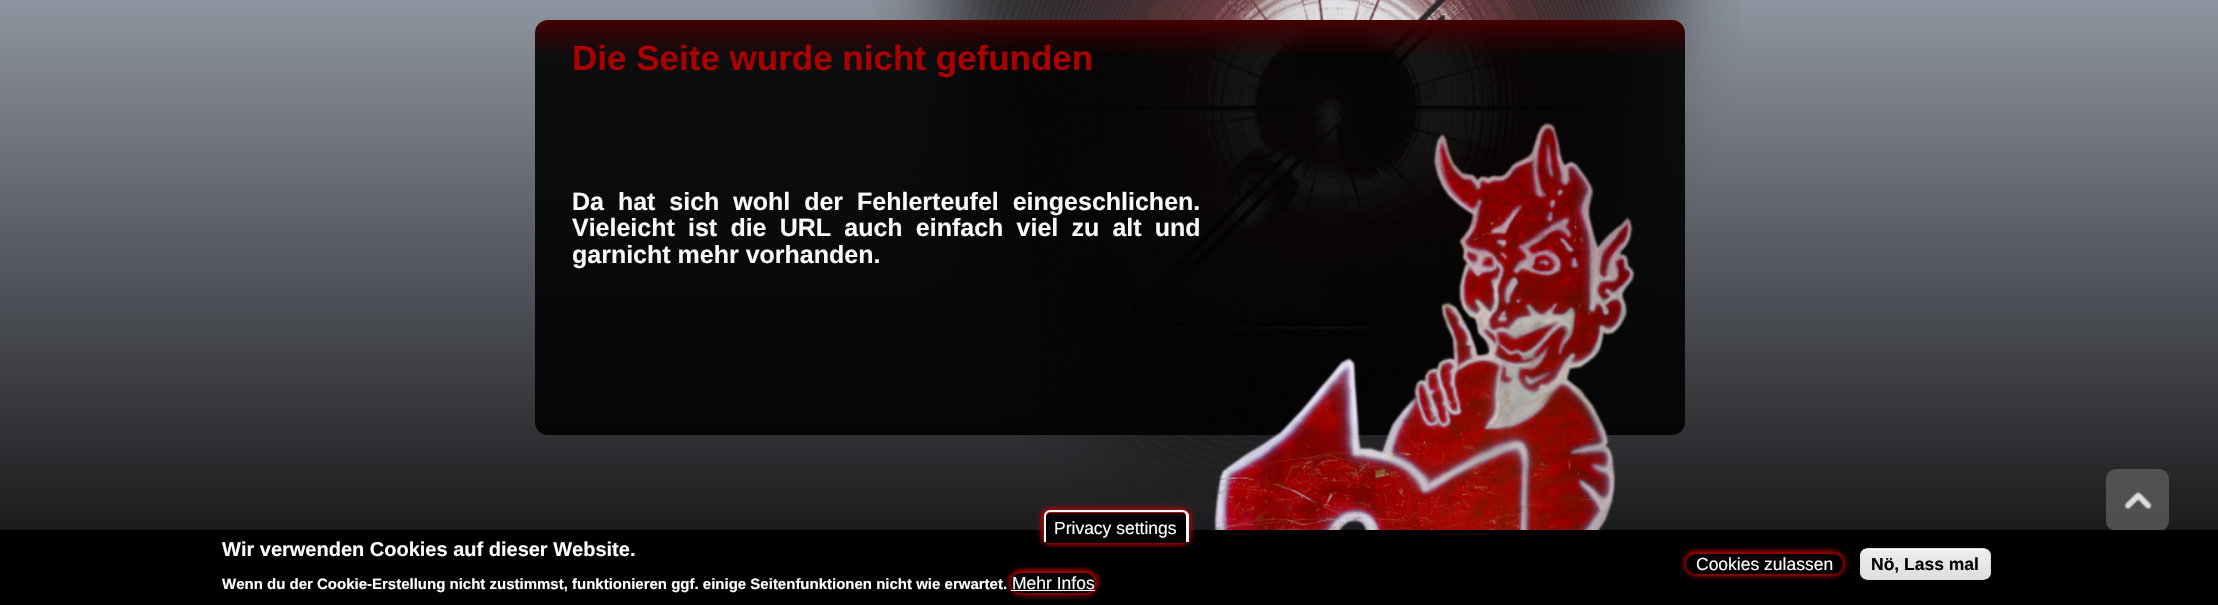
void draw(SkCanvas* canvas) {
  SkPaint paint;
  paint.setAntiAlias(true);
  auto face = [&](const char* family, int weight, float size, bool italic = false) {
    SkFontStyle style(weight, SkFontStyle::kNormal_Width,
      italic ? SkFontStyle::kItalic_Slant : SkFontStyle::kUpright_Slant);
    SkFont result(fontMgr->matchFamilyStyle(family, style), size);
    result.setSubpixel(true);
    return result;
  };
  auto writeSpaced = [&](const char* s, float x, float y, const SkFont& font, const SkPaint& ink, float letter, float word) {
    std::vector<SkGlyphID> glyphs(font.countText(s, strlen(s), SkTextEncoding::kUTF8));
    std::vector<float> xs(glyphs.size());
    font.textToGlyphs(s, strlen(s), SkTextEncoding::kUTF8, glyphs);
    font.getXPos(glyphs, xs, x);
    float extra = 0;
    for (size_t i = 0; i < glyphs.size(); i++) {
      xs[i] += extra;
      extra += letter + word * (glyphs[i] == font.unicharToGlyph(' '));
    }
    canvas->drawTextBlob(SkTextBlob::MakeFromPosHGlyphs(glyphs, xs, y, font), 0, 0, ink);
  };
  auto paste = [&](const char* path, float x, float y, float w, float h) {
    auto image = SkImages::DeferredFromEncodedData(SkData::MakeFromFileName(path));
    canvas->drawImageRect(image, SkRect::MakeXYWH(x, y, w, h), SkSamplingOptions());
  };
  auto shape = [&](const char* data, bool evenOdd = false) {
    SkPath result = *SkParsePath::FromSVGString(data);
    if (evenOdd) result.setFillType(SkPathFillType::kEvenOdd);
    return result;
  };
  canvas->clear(0xffffffff);
  {
    const SkColor colors[] = {0xff0a0a0a, 0xff8e949f};
    const float stops[] = {0, 1};
    const SkPoint ends[] = {{1109, 605}, {1109, 0}};
    paint.setShader(SkGradientShader::MakeLinear(ends, colors, stops, 2, SkTileMode::kClamp));
    paint.setAlpha(255);
  }
  canvas->drawRect(SkRect::MakeXYWH(0, 0, 2218, 530), paint);
  paste("img/1.png", 873, 0, 868, 499);
  {
    const SkColor colors[] = {0xff440000, 0xe6000000, 0xe6000000};
    const float stops[] = {0, 0.09f, 1};
    const SkPoint ends[] = {{1110, 20}, {1110, 435}};
    paint.setShader(SkGradientShader::MakeLinear(ends, colors, stops, 3, SkTileMode::kClamp));
    paint.setAlpha(255);
  }
  canvas->drawRoundRect(SkRect::MakeXYWH(535, 20, 1150, 415), 13, 13, paint);
  paste("img/2.png", 1213, 122, 422, 408);
  paint.setShader(nullptr);
  paint.setColor(0xcc5b5b5b);
  canvas->drawRoundRect(SkRect::MakeXYWH(2106, 469, 63, 62), 10, 10, paint);
  paste("img/3.png", 2124, 491, 28, 18);
  paint.setColor(0xff000000);
  canvas->drawRect(SkRect::MakeXYWH(0, 530, 2218, 75), paint);
  paint.setColor(0xe6ce0000);
  paint.setMaskFilter(SkMaskFilter::MakeBlur(kNormal_SkBlurStyle, 2.5f));
  canvas->drawRoundRect(SkRect::MakeXYWH(1041, 508, 150, 37), 9, 9, paint);
  paint.setMaskFilter(nullptr);
  paint.setColor(0xff000000);
  canvas->drawPath(shape("M1050 513H1182C1184 513 1186 515 1186 517V543H1046V517C1046 515 1048 513 1050 513Z"), paint);
  paint.setColor(0xffffffff);
  canvas->drawPath(shape("M1050 510H1182C1186 510 1189 513 1189 516V542H1044V516C1044 513 1047 510 1050 510ZM1050 512H1182C1185 512 1186 514 1186 516V542H1046V516C1046 514 1048 512 1050 512Z", true), paint);
  canvas->save();
  canvas->clipPath(shape("M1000 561H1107V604H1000ZM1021 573H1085C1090.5 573 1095 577.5 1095 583C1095 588.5 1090.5 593 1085 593H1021C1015.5 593 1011 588.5 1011 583C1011 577.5 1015.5 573 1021 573Z", true), true);
  paint.setColor(0xe6ce0000);
  paint.setMaskFilter(SkMaskFilter::MakeBlur(kNormal_SkBlurStyle, 2.5f));
  canvas->drawRoundRect(SkRect::MakeXYWH(1009, 570, 89, 25), 12.5f, 12.5f, paint);
  paint.setMaskFilter(nullptr);
  canvas->restore();
  paint.setColor(0xffffffff);
  canvas->drawRect(SkRect::MakeXYWH(1011, 590, 84, 1), paint);
  canvas->save();
  canvas->clipPath(shape("M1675 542H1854V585H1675ZM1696 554H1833C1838.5 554 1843 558.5 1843 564C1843 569.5 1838.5 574 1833 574H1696C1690.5 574 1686 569.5 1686 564C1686 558.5 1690.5 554 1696 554Z", true), true);
  paint.setColor(0xe6ce0000);
  paint.setMaskFilter(SkMaskFilter::MakeBlur(kNormal_SkBlurStyle, 2.5f));
  canvas->drawRoundRect(SkRect::MakeXYWH(1684, 551, 161, 25), 12.5f, 12.5f, paint);
  paint.setMaskFilter(nullptr);
  canvas->restore();
  canvas->save();
  canvas->clipPath(shape("M1868 548H1983C1987.5 548 1991 551.5 1991 556V572C1991 576.5 1987.5 580 1983 580H1868C1863.5 580 1860 576.5 1860 572V556C1860 551.5 1863.5 548 1868 548Z"), true);
  {
    const SkColor colors[] = {0xffededed, 0xffdfdfdf};
    const float stops[] = {0.05f, 1};
    const SkPoint ends[] = {{1926, 549}, {1926, 579}};
    paint.setShader(SkGradientShader::MakeLinear(ends, colors, stops, 2, SkTileMode::kClamp));
    paint.setAlpha(255);
  }
  canvas->drawRect(SkRect::MakeXYWH(1860, 549, 131, 30), paint);
  canvas->restore();
  paint.setShader(nullptr);
  paint.setColor(0xffffffff);
  canvas->drawPath(shape("M1868 550H1984C1987 550 1990 553 1990 556C1990 544 1970 549 1964 549H1886C1881 549 1861 544 1861 556C1861 553 1864 550 1868 550Z"), paint);
  paint.setStroke(true);
  paint.setStrokeWidth(1);
  paint.setColor(0xffdcdcdc);
  canvas->drawRoundRect(SkRect::MakeXYWH(1860.5f, 548.5f, 130, 31), 7.5f, 7.5f, paint);
  auto f0 = face("Liberation Sans", 700, 35);
  paint.setStroke(false);
  paint.setColor(0xffaa0000);
  canvas->drawString("Die Seite wurde nicht gefunden", 572, 70, f0, paint);
  auto f1 = face("Liberation Sans", 700, 25);
  paint.setColor(0xfff9f9f9);
  writeSpaced("Da hat sich wohl der Fehlerteufel eingeschlichen.", 572, 210, f1, paint, 0, 7);
  writeSpaced("Vieleicht ist die URL auch einfach viel zu alt und", 572, 236, f1, paint, 0, 6.25f);
  canvas->drawString("garnicht mehr vorhanden.", 572, 263, f1, paint);
  auto f2 = face("Liberation Sans", 400, 17.5f);
  paint.setColor(0xffffffff);
  canvas->drawString("Privacy settings", 1054, 534, f2, paint);
  auto f3 = face("Liberation Sans", 700, 20);
  canvas->drawString("Wir verwenden Cookies auf dieser Website.", 222, 556, f3, paint);
  auto f4 = face("Liberation Sans", 700, 15);
  canvas->drawString("Wenn du der Cookie-Erstellung nicht zustimmst, funktionieren ggf. einige Seitenfunktionen nicht wie erwartet.", 222, 589, f4, paint);
  canvas->drawString("Mehr Infos", 1012, 589, f2, paint);
  canvas->drawString("Cookies zulassen", 1696, 570, f2, paint);
  auto f5 = face("Liberation Sans", 700, 17.5f);
  paint.setColor(0xff000000);
  canvas->drawString("Nö, Lass mal", 1871, 570, f5, paint);
}
